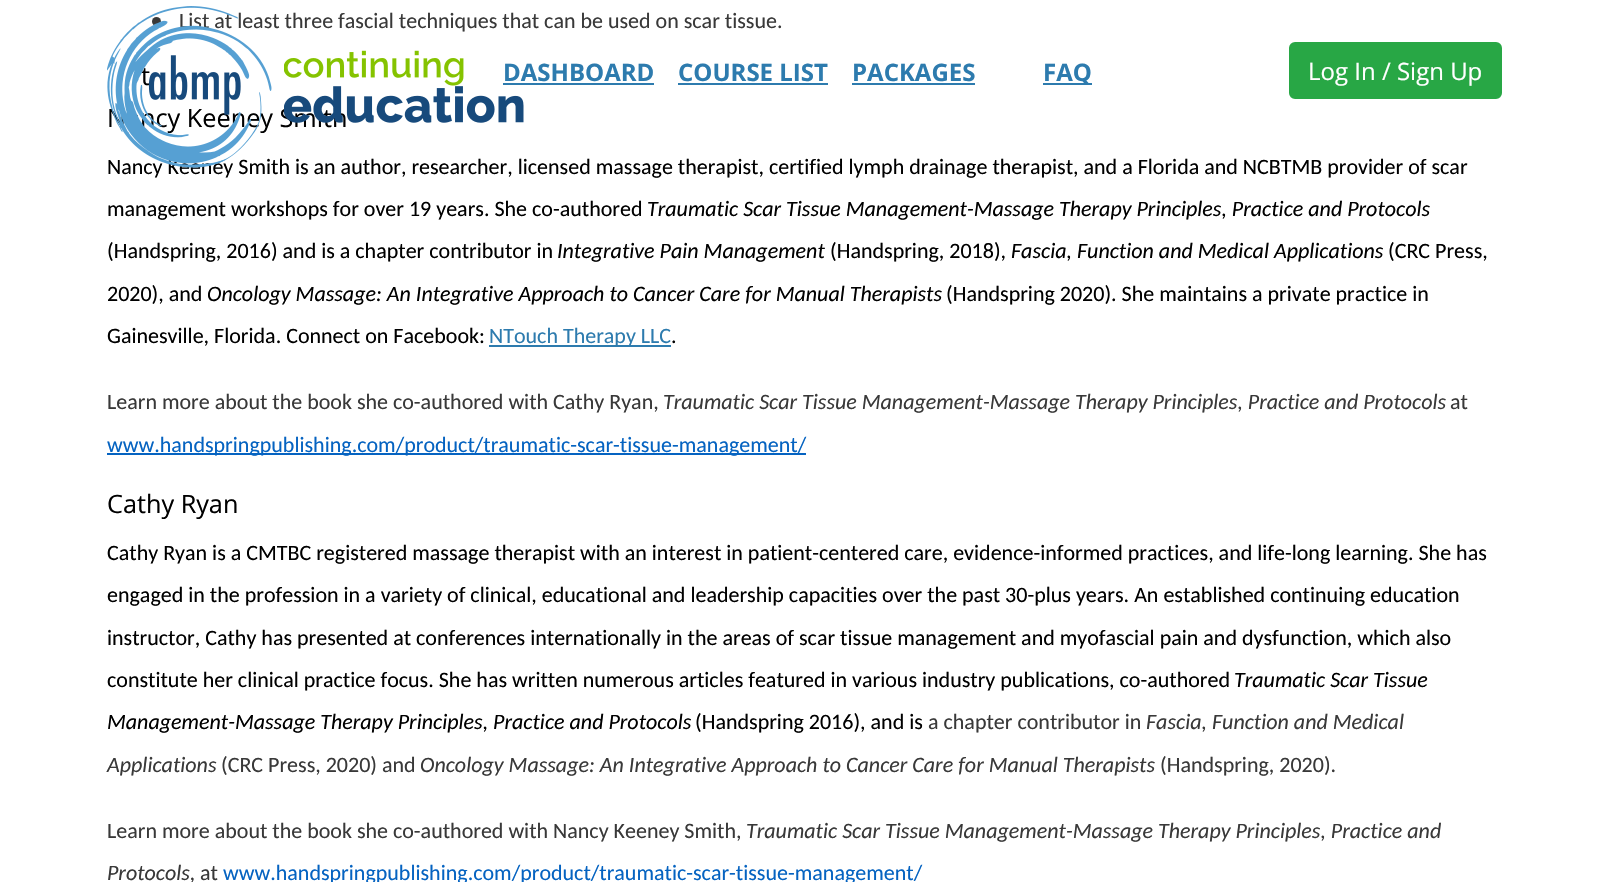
void draw(SkCanvas* canvas) {
  SkPaint paint;
  paint.setAntiAlias(true);
  auto face = [&](const char* family, int weight, float size, bool italic = false) {
    SkFontStyle style(weight, SkFontStyle::kNormal_Width,
      italic ? SkFontStyle::kItalic_Slant : SkFontStyle::kUpright_Slant);
    SkFont result(fontMgr->matchFamilyStyle(family, style), size);
    result.setSubpixel(true);
    return result;
  };
  auto paste = [&](const char* path, float x, float y, float w, float h) {
    auto image = SkImages::DeferredFromEncodedData(SkData::MakeFromFileName(path));
    canvas->drawImageRect(image, SkRect::MakeXYWH(x, y, w, h), SkSamplingOptions());
  };
  canvas->clear(0xffffffff);
  paint.setColor(0xff393939);
  canvas->drawCircle(156.5f, 21.5f, 4.5f, paint);
  {
    const struct { float x, y, w, h; SkColor color; } items[] = {
      {489, 345, 182, 2, 0xff2d7bae},
      {107, 453, 699, 2, 0xff0563c1},
      {678, 83, 150, 2, 0xff2d7bae},
      {852, 83, 123, 2, 0xff2d7bae},
      {1043, 83, 49, 2, 0xff2d7bae},
    };
    for (auto [x, y, w, h, color] : items) {
      paint.setColor(color);
      canvas->drawRect(SkRect::MakeXYWH(x, y, w, h), paint);
    }
  }
  paint.setColor(0xff28a745);
  canvas->drawRoundRect(SkRect::MakeXYWH(1290, 43, 211, 55), 5, 5, paint);
  paint.setStroke(true);
  paint.setStrokeWidth(2);
  canvas->drawRoundRect(SkRect::MakeXYWH(1290, 43, 211, 55), 5, 5, paint);
  auto f0 = face("Carlito", 400, 22);
  paint.setStroke(false);
  paint.setColor(0xff393939);
  canvas->drawString("List at least three fascial techniques that can be used on scar tissue.", 179, 28, f0, paint);
  auto f1 = face("Open Sans", 400, 25.25f);
  paint.setColor(0xff000000);
  canvas->drawString("t", 141, 85, f1, paint);
  canvas->drawString("Nancy Keeney Smith", 107, 127, f1, paint);
  canvas->drawString("Nancy Keeney Smith is an author, researcher, licensed massage therapist, certified lymph drainage therapist, and a Florida and NCBTMB provider of scar", 107, 174, f0, paint);
  canvas->drawString("management workshops for over 19 years. She co-authored", 107, 216, f0, paint);
  auto f2 = face("Carlito", 400, 22, true);
  canvas->drawString("Traumatic Scar Tissue Management-Massage Therapy Principles, Practice and Protocols", 647, 216, f2, paint);
  canvas->drawString("(Handspring, 2016) and is a chapter contributor in", 107, 258, f0, paint);
  canvas->drawString("Integrative Pain Management", 557, 258, f2, paint);
  canvas->drawString("(Handspring, 2018),", 830, 258, f0, paint);
  canvas->drawString("Fascia, Function and Medical Applications", 1011, 258, f2, paint);
  canvas->drawString("(CRC Press,", 1388, 258, f0, paint);
  canvas->drawString("2020), and", 107, 301, f0, paint);
  canvas->drawString("Oncology Massage: An Integrative Approach to Cancer Care for Manual Therapists", 207, 301, f2, paint);
  canvas->drawString("(Handspring 2020). She maintains a private practice in", 946, 301, f0, paint);
  canvas->drawString("Gainesville, Florida. Connect on Facebook:", 107, 343, f0, paint);
  paint.setColor(0xff2d7bae);
  canvas->drawString("NTouch Therapy LLC", 489, 343, f0, paint);
  paint.setColor(0xff000000);
  canvas->drawString(".", 671, 343, f0, paint);
  paint.setColor(0xff393939);
  canvas->drawString("Learn more about the book she co-authored with Cathy Ryan,", 107, 409, f0, paint);
  canvas->drawString("Traumatic Scar Tissue Management-Massage Therapy Principles, Practice and Protocols", 663, 409, f2, paint);
  canvas->drawString("at", 1450, 409, f0, paint);
  paint.setColor(0xff0563c1);
  canvas->drawString("www.handspringpublishing.com/product/traumatic-scar-tissue-management/", 107, 452, f0, paint);
  paint.setColor(0xff000000);
  canvas->drawString("Cathy Ryan", 107, 513, f1, paint);
  {
    const struct { const char* s; float x, y; } items[] = {
      {"Cathy Ryan is a CMTBC registered massage therapist with an interest in patient-centered care, evidence-informed practices, and life-long learning. She has", 107, 560},
      {"engaged in the profession in a variety of clinical, educational and leadership capacities over the past 30-plus years. An established continuing education", 107, 602},
      {"instructor, Cathy has presented at conferences internationally in the areas of scar tissue management and myofascial pain and dysfunction, which also", 107, 645},
      {"constitute her clinical practice focus. She has written numerous articles featured in various industry publications, co-authored", 107, 687},
    };
    for (auto [s, x, y] : items) {
      canvas->drawString(s, x, y, f0, paint);
    }
  }
  canvas->drawString("Traumatic Scar Tissue", 1234, 687, f2, paint);
  canvas->drawString("Management-Massage Therapy Principles, Practice and Protocols", 107, 729, f2, paint);
  canvas->drawString("(Handspring 2016), and is", 695, 729, f0, paint);
  paint.setColor(0xff393939);
  canvas->drawString("a chapter contributor in", 928, 729, f0, paint);
  canvas->drawString("Fascia, Function and Medical", 1146, 729, f2, paint);
  canvas->drawString("Applications", 107, 772, f2, paint);
  canvas->drawString("(CRC Press, 2020) and", 221, 772, f0, paint);
  canvas->drawString("Oncology Massage: An Integrative Approach to Cancer Care for Manual Therapists", 420, 772, f2, paint);
  canvas->drawString("(Handspring, 2020).", 1160, 772, f0, paint);
  canvas->drawString("Learn more about the book she co-authored with Nancy Keeney Smith,", 107, 838, f0, paint);
  canvas->drawString("Traumatic Scar Tissue Management-Massage Therapy Principles, Practice and", 746, 838, f2, paint);
  canvas->drawString("Protocols,", 107, 880, f2, paint);
  canvas->drawString("at", 200, 880, f0, paint);
  paint.setColor(0xff0563c1);
  canvas->drawString("www.handspringpublishing.com/product/traumatic-scar-tissue-management/", 223, 880, f0, paint);
  paste("img/1.png", 107, 6, 165, 162);
  paste("img/2.png", 284, 50, 240, 73);
  auto f3 = face("Open Sans", 700, 24);
  paint.setColor(0xff2d7bae);
  canvas->drawString("DASHBOARD", 503, 81, f3, paint);
  canvas->drawRect(SkRect::MakeXYWH(503, 83, 151, 2), paint);
  {
    const struct { const char* s; float x, y; } items[] = {
      {"COURSE LIST", 678, 81},
      {"PACKAGES", 852, 81},
      {"FAQ", 1043, 81},
    };
    for (auto [s, x, y] : items) {
      canvas->drawString(s, x, y, f3, paint);
    }
  }
  auto f4 = face("Open Sans", 400, 24);
  paint.setColor(0xffffffff);
  canvas->drawString("Log In / Sign Up", 1308, 80, f4, paint);
}
